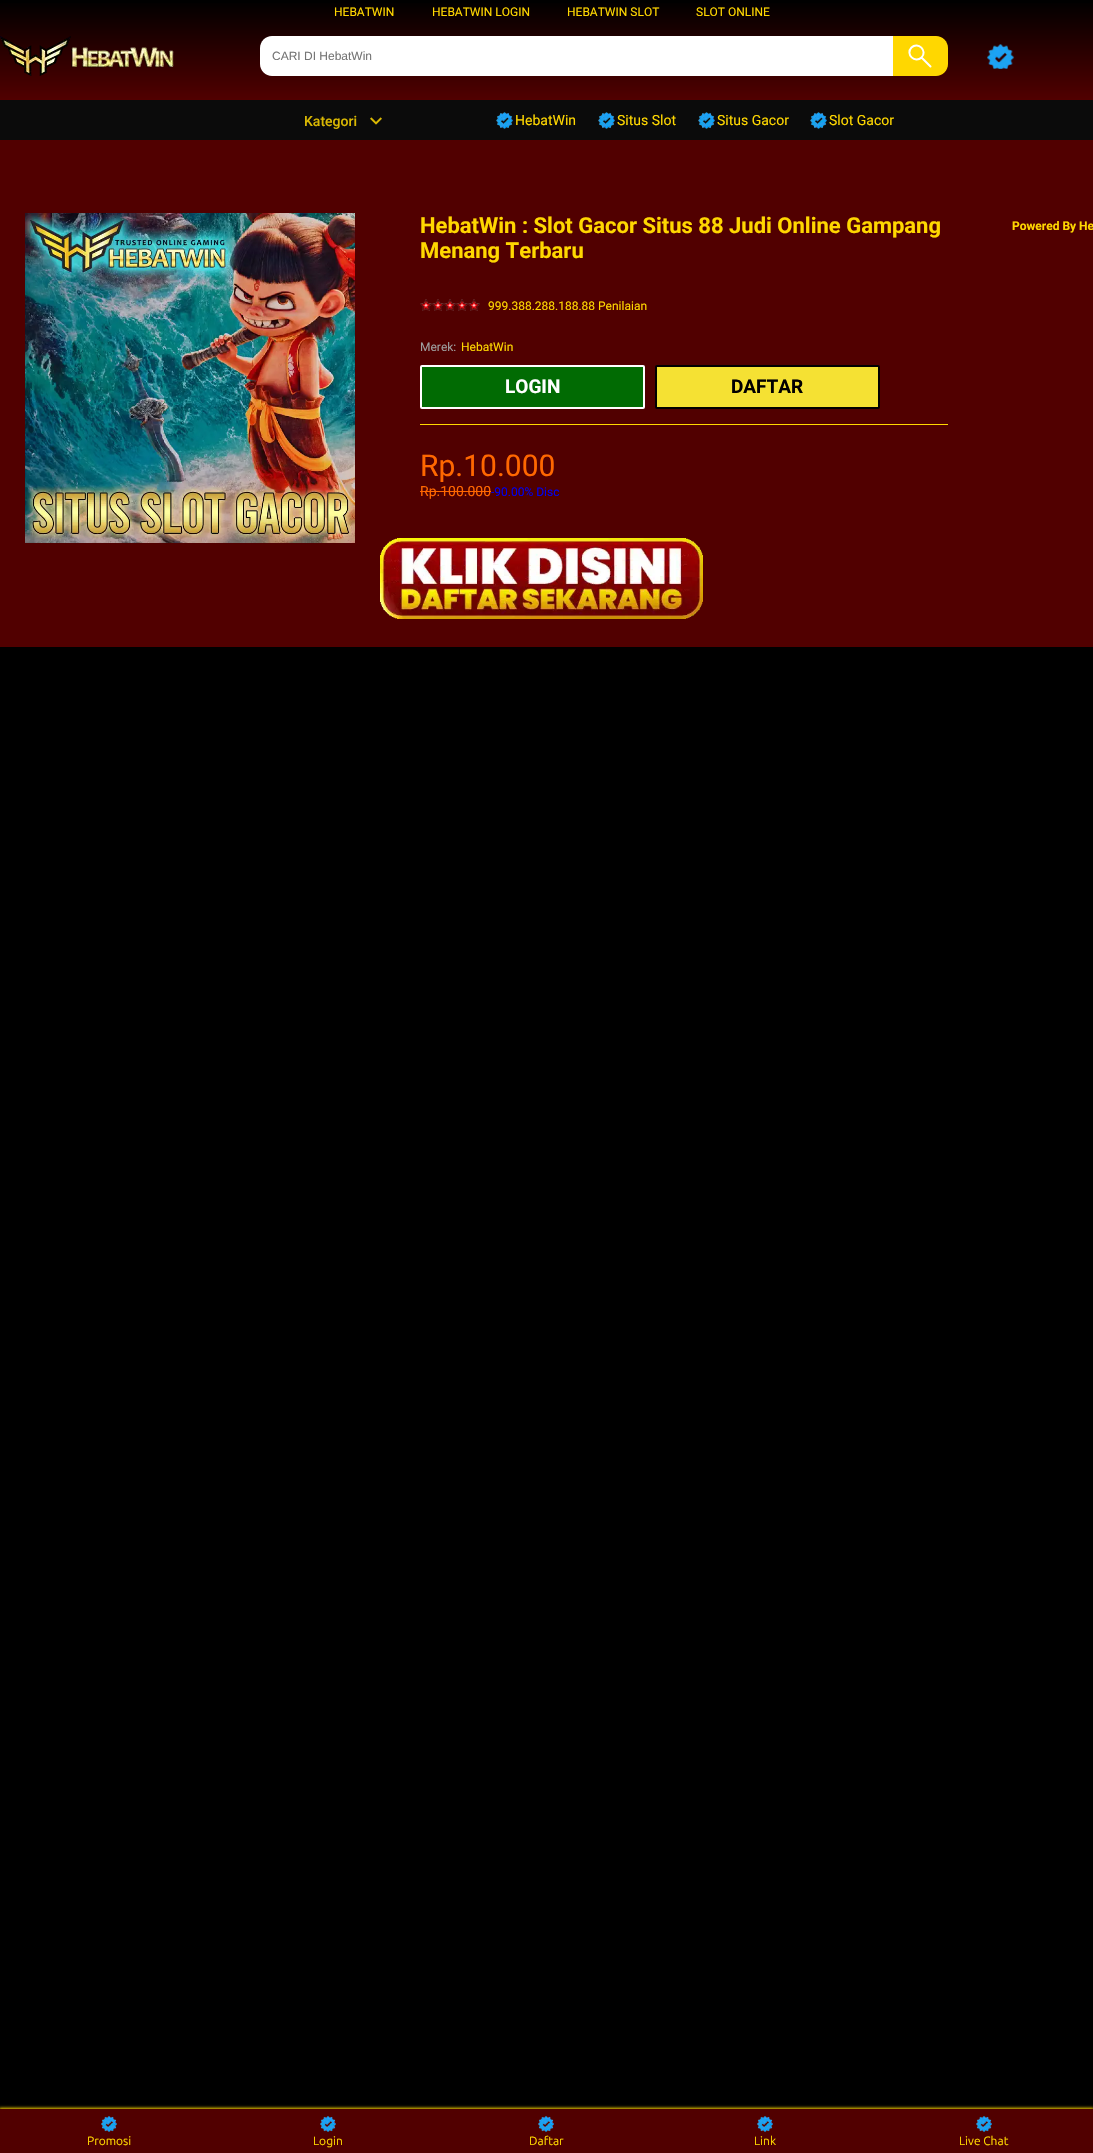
void draw(SkCanvas* canvas) {
  SkPaint paint;
  paint.setAntiAlias(true);
  auto face = [&](const char* family, int weight, float size, bool italic = false) {
    SkFontStyle style(weight, SkFontStyle::kNormal_Width,
      italic ? SkFontStyle::kItalic_Slant : SkFontStyle::kUpright_Slant);
    SkFont result(fontMgr->matchFamilyStyle(family, style), size);
    result.setSubpixel(true);
    return result;
  };
  auto paste = [&](const char* path, float x, float y, float w, float h) {
    auto image = SkImages::DeferredFromEncodedData(SkData::MakeFromFileName(path));
    canvas->drawImageRect(image, SkRect::MakeXYWH(x, y, w, h), SkSamplingOptions());
  };
  auto shape = [&](const char* data, bool evenOdd = false) {
    SkPath result = *SkParsePath::FromSVGString(data);
    if (evenOdd) result.setFillType(SkPathFillType::kEvenOdd);
    return result;
  };
  canvas->clear(0xff000000);
  {
    const SkColor colors[] = {0xff000000, 0xff510000};
    const float stops[] = {0, 1};
    const SkPoint ends[] = {{547, 0}, {547, 100}};
    paint.setShader(SkGradientShader::MakeLinear(ends, colors, stops, 2, SkTileMode::kClamp));
    paint.setAlpha(255);
  }
  canvas->drawRect(SkRect::MakeXYWH(0, 3, 1093, 97), paint);
  paste("img/1.png", 0, 36, 174, 40);
  paint.setShader(nullptr);
  paint.setColor(0xffffffff);
  canvas->drawPath(shape("M272 36H893V76H272C265.5 76 260 70.5 260 64V48C260 41.5 265.5 36 272 36Z"), paint);
  paint.setColor(0xffffd700);
  canvas->drawPath(shape("M893 36H936C942.5 36 948 41.5 948 48V64C948 70.5 942.5 76 936 76H893Z"), paint);
  paint.setStroke(true);
  paint.setStrokeWidth(2);
  paint.setStrokeCap(SkPaint::kRound_Cap);
  paint.setStrokeJoin(SkPaint::kRound_Join);
  paint.setColor(0xffffffff);
  canvas->drawPath(shape("M921.5 57.5C928 51 918 41 911.5 47.5C905 54 915 64 921.5 57.5ZM922 58L930.5 66.5"), paint);
  paste("img/2.png", 987, 44, 28, 25);
  paint.setStroke(false);
  paint.setColor(0xff0b0b0b);
  canvas->drawRect(SkRect::MakeXYWH(0, 100, 1093, 40), paint);
  paste("img/3.png", 370, 117, 12, 8);
  paste("img/4.png", 496, 112, 17, 17);
  paste("img/4.png", 598, 112, 17, 17);
  paste("img/5.png", 698, 112, 17, 17);
  paste("img/5.png", 810, 112, 17, 17);
  paint.setColor(0xff510000);
  canvas->drawRect(SkRect::MakeXYWH(0, 140, 1093, 507), paint);
  paste("img/6.png", 25, 213, 330, 330);
  paste("img/7.png", 420, 299, 12, 12);
  paste("img/7.png", 432, 299, 12, 12);
  paste("img/7.png", 444, 299, 12, 12);
  paste("img/7.png", 456, 299, 12, 12);
  paste("img/7.png", 468, 299, 12, 12);
  paint.setColor(0xffffd700);
  canvas->drawRect(SkRect::MakeXYWH(420, 424, 528, 1), paint);
  paint.setColor(0xff016b03);
  canvas->drawRoundRect(SkRect::MakeXYWH(421, 366, 223, 42), 1, 1, paint);
  paint.setStroke(true);
  paint.setStrokeCap(SkPaint::kButt_Cap);
  paint.setStrokeJoin(SkPaint::kMiter_Join);
  paint.setColor(0xffffffff);
  canvas->drawRoundRect(SkRect::MakeXYWH(421, 366, 223, 42), 1, 1, paint);
  paint.setStroke(false);
  paint.setColor(0xfff5e133);
  canvas->drawRoundRect(SkRect::MakeXYWH(656, 366, 223, 42), 1, 1, paint);
  paint.setStroke(true);
  paint.setColor(0xff020000);
  canvas->drawRoundRect(SkRect::MakeXYWH(656, 366, 223, 42), 1, 1, paint);
  paint.setStroke(false);
  paint.setColor(0xffff6700);
  canvas->drawRect(SkRect::MakeXYWH(420, 491, 71, 1), paint);
  paste("img/8.png", 380, 538, 323, 81);
  paint.setColor(0xffffd700);
  paint.setMaskFilter(SkMaskFilter::MakeBlur(kNormal_SkBlurStyle, 1.5f));
  canvas->drawRect(SkRect::MakeXYWH(-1, 2108, 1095, 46), paint);
  paint.setMaskFilter(nullptr);
  paint.setColor(0xff510000);
  canvas->drawRect(SkRect::MakeXYWH(0, 2109, 1093, 44), paint);
  paste("img/9.png", 101, 2116, 16, 16);
  paste("img/9.png", 320, 2116, 16, 16);
  paste("img/10.png", 538, 2116, 16, 16);
  paste("img/9.png", 757, 2116, 16, 16);
  paste("img/10.png", 976, 2116, 16, 16);
  auto f0 = face("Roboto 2", 400, 12);
  paint.setColor(0xffffd700);
  {
    const struct { const char* s; float x, y; } items[] = {
      {"HEBATWIN", 334, 16},
      {"HEBATWIN LOGIN", 432, 16},
      {"HEBATWIN SLOT", 567, 16},
      {"SLOT ONLINE", 696, 16},
    };
    for (auto [s, x, y] : items) {
      canvas->drawString(s, x, y, f0, paint);
    }
  }
  auto f1 = face("Liberation Sans", 400, 12);
  paint.setColor(0xff757575);
  canvas->drawString("CARI DI HebatWin", 272, 60, f1, paint);
  auto f2 = face("Roboto", 500, 14);
  paint.setColor(0xffdab802);
  canvas->drawString("Kategori", 304, 126, f2, paint);
  auto f3 = face("Roboto 2", 400, 14);
  paint.setColor(0xffffd700);
  {
    const struct { const char* s; float x, y; } items[] = {
      {"HebatWin", 515, 125},
      {"Situs Slot", 617, 125},
      {"Situs Gacor", 717, 125},
      {"Slot Gacor", 829, 125},
    };
    for (auto [s, x, y] : items) {
      canvas->drawString(s, x, y, f3, paint);
    }
  }
  auto f4 = face("Roboto", 700, 22);
  canvas->drawString("HebatWin : Slot Gacor Situs 88 Judi Online Gampang", 420, 233, f4, paint);
  canvas->drawString("Menang Terbaru", 420, 258, f4, paint);
  auto f5 = face("Roboto", 400, 12);
  canvas->drawString("999.388.288.188.88 Penilaian", 488, 310, f5, paint);
  paint.setColor(0xff9e9e9e);
  canvas->drawString("Merek:", 420, 351, f5, paint);
  paint.setColor(0xffffd700);
  canvas->drawString("HebatWin", 461, 351, f5, paint);
  auto f6 = face("Roboto", 700, 19);
  paint.setColor(0xffffffff);
  canvas->drawString("LOGIN", 505, 393, f6, paint);
  paint.setColor(0xff020000);
  canvas->drawString("DAFTAR", 731, 393, f6, paint);
  auto f7 = face("Roboto", 700, 12);
  paint.setColor(0xffffd700);
  canvas->drawString("Powered By He", 1012, 230, f7, paint);
  auto f8 = face("Roboto", 400, 30);
  paint.setColor(0xffff6700);
  canvas->drawString("Rp.10.000", 420, 476, f8, paint);
  auto f9 = face("Roboto", 400, 14);
  canvas->drawString("Rp.100.000", 420, 496, f9, paint);
  paint.setColor(0xff0000ee);
  canvas->drawString("-90.00% Disc", 491, 496, f5, paint);
  auto f10 = face("Ubuntu", 400, 12);
  paint.setColor(0xffffd700);
  {
    const struct { const char* s; float x, y; } items[] = {
      {"Promosi", 87, 2145},
      {"Login", 313, 2145},
      {"Daftar", 529, 2145},
      {"Link", 754, 2145},
      {"Live Chat", 959, 2145},
    };
    for (auto [s, x, y] : items) {
      canvas->drawString(s, x, y, f10, paint);
    }
  }
}
